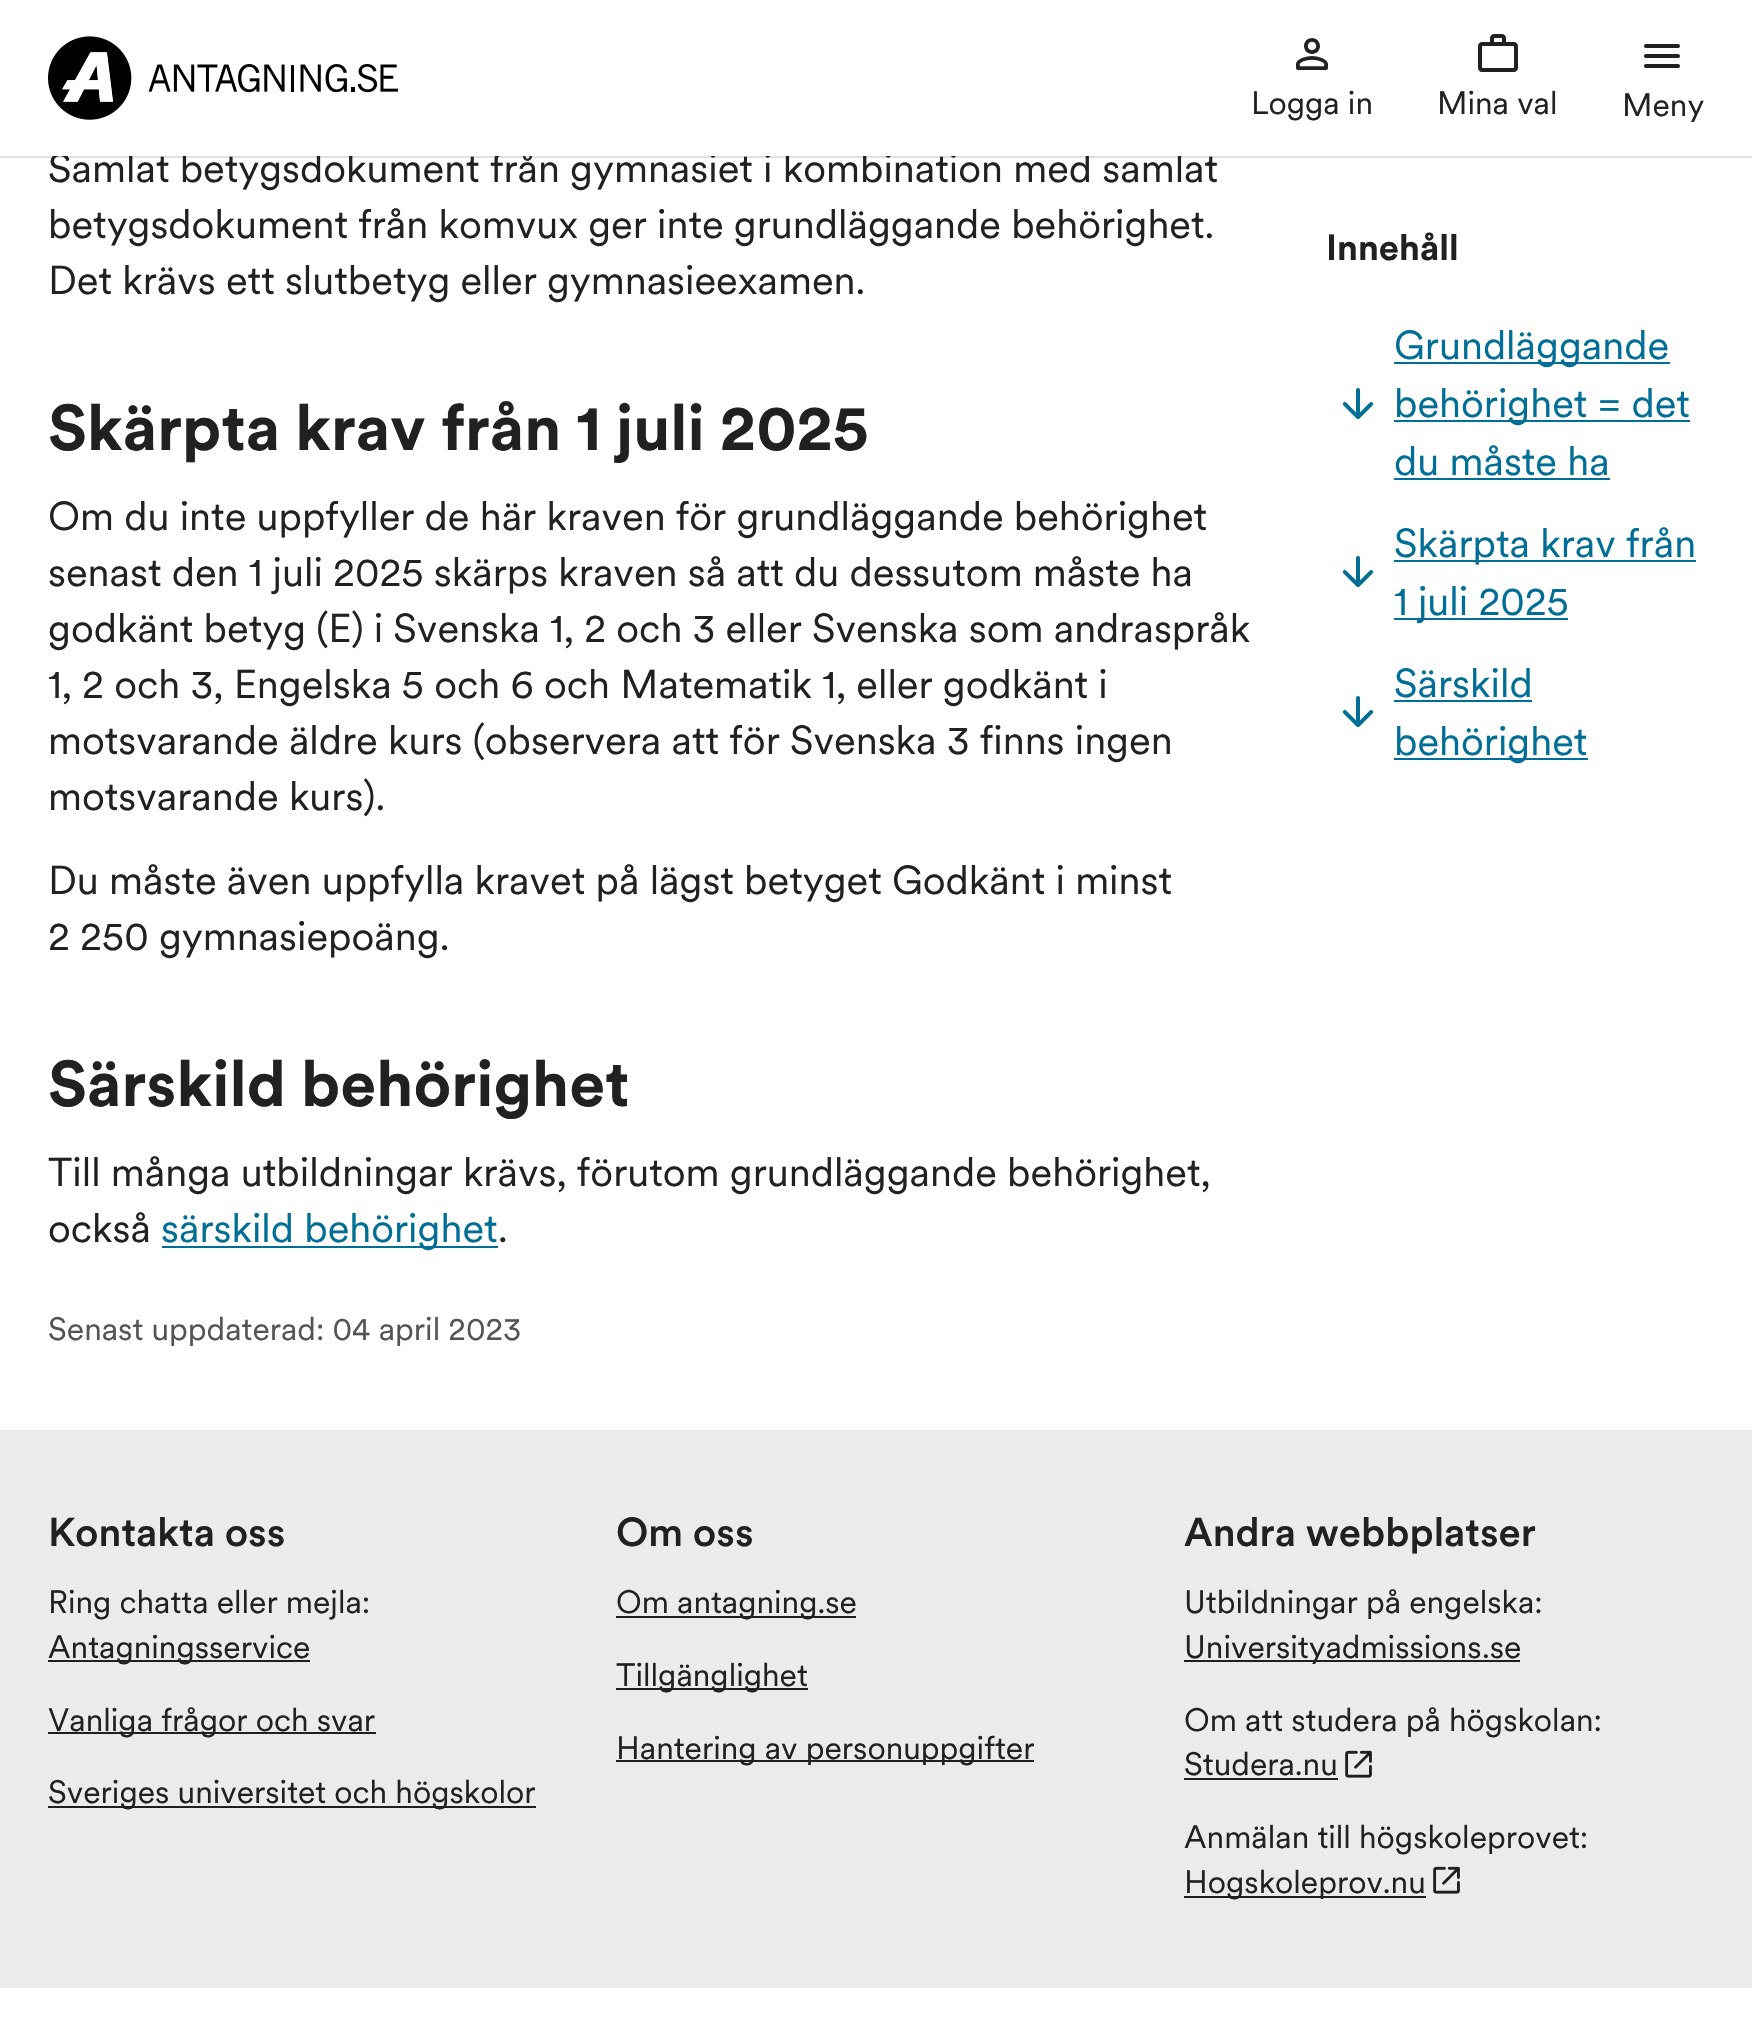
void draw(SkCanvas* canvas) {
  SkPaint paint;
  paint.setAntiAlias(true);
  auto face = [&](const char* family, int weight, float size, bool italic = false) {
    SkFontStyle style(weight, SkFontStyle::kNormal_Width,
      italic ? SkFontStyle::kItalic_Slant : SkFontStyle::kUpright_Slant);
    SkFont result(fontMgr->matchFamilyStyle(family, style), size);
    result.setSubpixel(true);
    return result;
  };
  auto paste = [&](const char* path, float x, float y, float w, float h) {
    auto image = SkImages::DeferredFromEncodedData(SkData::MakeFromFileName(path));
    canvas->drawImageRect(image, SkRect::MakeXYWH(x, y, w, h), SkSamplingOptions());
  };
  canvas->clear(0xffffffff);
  paint.setColor(0x1f000000);
  canvas->drawRect(SkRect::MakeXYWH(0, 156, 1752, 2), paint);
  paste("img/1.png", 48, 36, 350, 84);
  paste("img/2.png", 1296, 38, 32, 32);
  paste("img/3.png", 1478, 34, 40, 38);
  paste("img/4.png", 1644, 44, 36, 24);
  paint.setColor(0xff006e96);
  canvas->drawRect(SkRect::MakeXYWH(162, 1246, 336, 2), paint);
  paste("img/5.png", 1342, 388, 32, 32);
  {
    const struct { float x, y, w, h; SkColor color; } items[] = {
      {1394, 362, 276, 2, 0xff006e96},
      {1394, 420, 296, 2, 0xff006e96},
      {1394, 478, 216, 2, 0xff006e96},
    };
    for (auto [x, y, w, h, color] : items) {
      paint.setColor(color);
      canvas->drawRect(SkRect::MakeXYWH(x, y, w, h), paint);
    }
  }
  paste("img/5.png", 1342, 556, 32, 32);
  canvas->drawRect(SkRect::MakeXYWH(1394, 560, 302, 2), paint);
  canvas->drawRect(SkRect::MakeXYWH(1394, 618, 174, 2), paint);
  paste("img/5.png", 1342, 696, 32, 32);
  {
    const struct { float x, y, w, h; SkColor color; } items[] = {
      {1394, 700, 138, 2, 0xff006e96},
      {1394, 758, 194, 2, 0xff006e96},
      {0, 1430, 1752, 558, 0xffebebeb},
      {48, 1660, 262, 2, 0xff1f1f1f},
      {48, 1732, 328, 2, 0xff1f1f1f},
      {48, 1806, 488, 2, 0xff1f1f1f},
      {616, 1616, 240, 2, 0xff1f1f1f},
      {616, 1688, 192, 2, 0xff1f1f1f},
      {616, 1760, 418, 2, 0xff1f1f1f},
      {1184, 1660, 336, 2, 0xff1f1f1f},
      {1184, 1778, 154, 2, 0xff1f1f1f},
    };
    for (auto [x, y, w, h, color] : items) {
      paint.setColor(color);
      canvas->drawRect(SkRect::MakeXYWH(x, y, w, h), paint);
    }
  }
  paste("img/6.png", 1345, 1750, 27, 28);
  canvas->drawRect(SkRect::MakeXYWH(1184, 1896, 242, 2), paint);
  paste("img/6.png", 1433, 1866, 27, 28);
  auto f0 = face("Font", 400, 32);
  paint.setColor(0xff212121);
  {
    const struct { const char* s; float x, y; } items[] = {
      {"Logga in", 1251, 114},
      {"Mina val", 1437, 114},
      {"Meny", 1622, 116},
    };
    for (auto [s, x, y] : items) {
      canvas->drawString(s, x, y, f0, paint);
    }
  }
  auto f1 = face("Font", 400, 40);
  canvas->drawString("Samlat betygsdokument från gymnasiet i kombination med samlat", 48, 182, f1, paint);
  paint.setColor(0xffffffff);
  canvas->drawRect(SkRect::MakeXYWH(53, 152, 1128, 4), paint);
  paint.setColor(0xff212121);
  canvas->drawString("betygsdokument från komvux ger inte grundläggande behörighet.", 48, 238, f1, paint);
  canvas->drawString("Det krävs ett slutbetyg eller gymnasieexamen.", 48, 294, f1, paint);
  auto f2 = face("Font", 700, 64);
  canvas->drawString("Skärpta krav från 1 juli 2025", 48, 450, f2, paint);
  {
    const struct { const char* s; float x, y; } items[] = {
      {"Om du inte uppfyller de här kraven för grundläggande behörighet", 48, 530},
      {"senast den 1 juli 2025 skärps kraven så att du dessutom måste ha", 48, 586},
      {"godkänt betyg (E) i Svenska 1, 2 och 3 eller Svenska som andraspråk", 48, 642},
      {"1, 2 och 3, Engelska 5 och 6 och Matematik 1, eller godkänt i", 48, 698},
      {"motsvarande äldre kurs (observera att för Svenska 3 finns ingen", 48, 754},
      {"motsvarande kurs).", 48, 810},
      {"Du måste även uppfylla kravet på lägst betyget Godkänt i minst", 48, 894},
      {"2 250 gymnasiepoäng.", 48, 950},
    };
    for (auto [s, x, y] : items) {
      canvas->drawString(s, x, y, f1, paint);
    }
  }
  canvas->drawString("Särskild behörighet", 48, 1106, f2, paint);
  canvas->drawString("Till många utbildningar krävs, förutom grundläggande behörighet,", 48, 1186, f1, paint);
  canvas->drawString("också", 48, 1242, f1, paint);
  paint.setColor(0xff006e96);
  canvas->drawString("särskild behörighet", 161, 1242, f1, paint);
  paint.setColor(0xff212121);
  canvas->drawString(".", 498, 1242, f1, paint);
  paint.setColor(0xff545454);
  canvas->drawString("Senast uppdaterad: 04 april 2023", 48, 1340, f0, paint);
  auto f3 = face("Font", 700, 36);
  paint.setColor(0xff212121);
  canvas->drawString("Innehåll", 1326, 260, f3, paint);
  paint.setColor(0xff006e96);
  {
    const struct { const char* s; float x, y; } items[] = {
      {"Grundläggande", 1394, 359},
      {"behörighet = det", 1394, 417},
      {"du måste ha", 1394, 475},
      {"Skärpta krav från", 1394, 557},
      {"1 juli 2025", 1394, 615},
      {"Särskild", 1394, 697},
      {"behörighet", 1394, 755},
    };
    for (auto [s, x, y] : items) {
      canvas->drawString(s, x, y, f1, paint);
    }
  }
  auto f4 = face("Font", 500, 40);
  paint.setColor(0xff212121);
  canvas->drawString("Kontakta oss", 48, 1546, f4, paint);
  {
    const struct { const char* s; float x, y; } items[] = {
      {"Ring chatta eller mejla:", 48, 1613},
      {"Antagningsservice", 48, 1658},
      {"Vanliga frågor och svar", 48, 1731},
      {"Sveriges universitet och högskolor", 48, 1803},
    };
    for (auto [s, x, y] : items) {
      canvas->drawString(s, x, y, f0, paint);
    }
  }
  canvas->drawString("Om oss", 616, 1546, f4, paint);
  {
    const struct { const char* s; float x, y; } items[] = {
      {"Om antagning.se", 616, 1613},
      {"Tillgänglighet", 616, 1686},
      {"Hantering av personuppgifter", 616, 1759},
    };
    for (auto [s, x, y] : items) {
      canvas->drawString(s, x, y, f0, paint);
    }
  }
  canvas->drawString("Andra webbplatser", 1184, 1546, f4, paint);
  {
    const struct { const char* s; float x, y; } items[] = {
      {"Utbildningar på engelska:", 1184, 1613},
      {"Universityadmissions", 1184, 1658},
      {".se", 1482, 1658},
      {"Om att studera på högskolan:", 1184, 1731},
      {"Studera.nu", 1184, 1775},
      {"Anmälan till högskoleprovet:", 1184, 1848},
      {"Hogskoleprov.nu", 1184, 1893},
    };
    for (auto [s, x, y] : items) {
      canvas->drawString(s, x, y, f0, paint);
    }
  }
}
